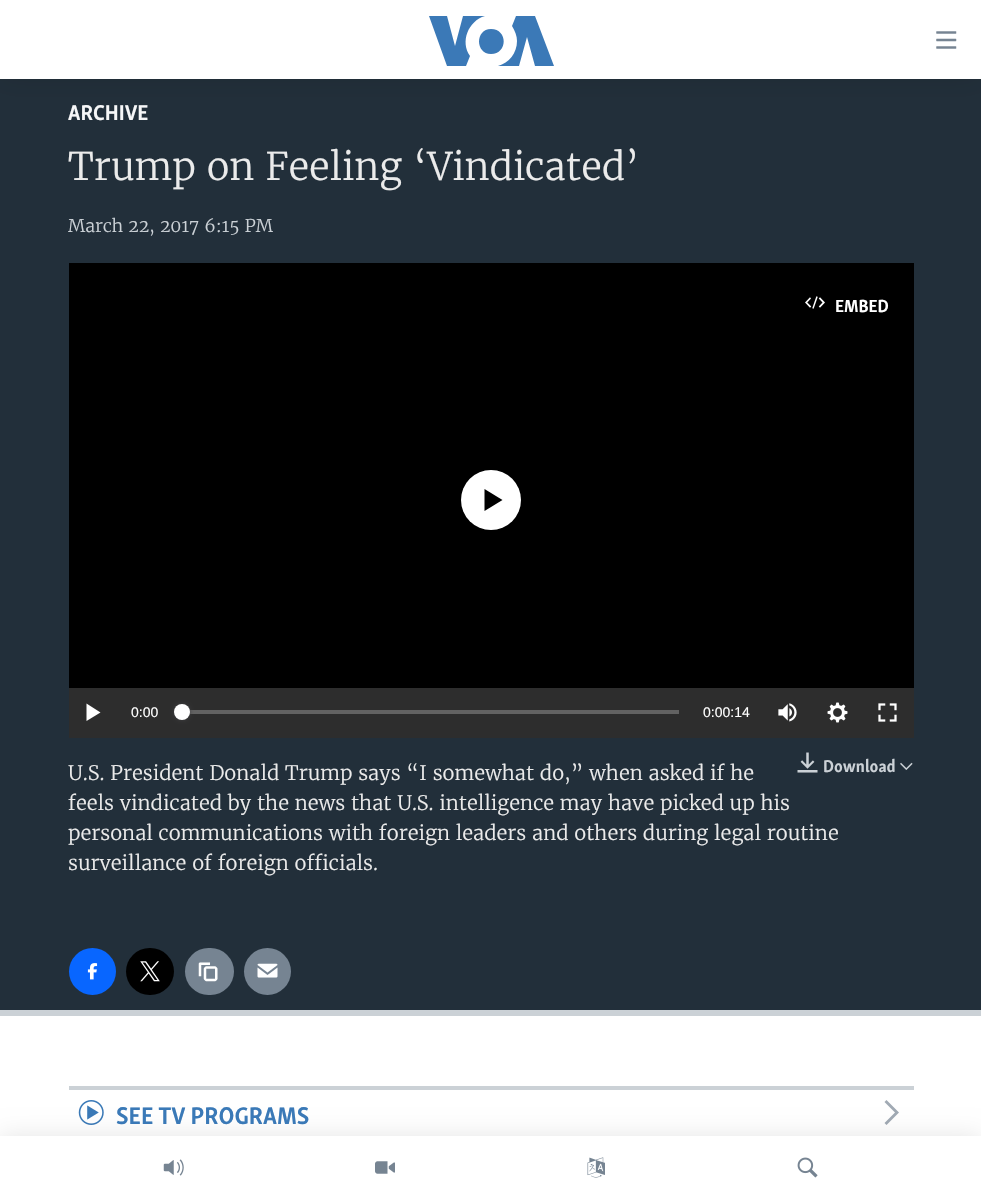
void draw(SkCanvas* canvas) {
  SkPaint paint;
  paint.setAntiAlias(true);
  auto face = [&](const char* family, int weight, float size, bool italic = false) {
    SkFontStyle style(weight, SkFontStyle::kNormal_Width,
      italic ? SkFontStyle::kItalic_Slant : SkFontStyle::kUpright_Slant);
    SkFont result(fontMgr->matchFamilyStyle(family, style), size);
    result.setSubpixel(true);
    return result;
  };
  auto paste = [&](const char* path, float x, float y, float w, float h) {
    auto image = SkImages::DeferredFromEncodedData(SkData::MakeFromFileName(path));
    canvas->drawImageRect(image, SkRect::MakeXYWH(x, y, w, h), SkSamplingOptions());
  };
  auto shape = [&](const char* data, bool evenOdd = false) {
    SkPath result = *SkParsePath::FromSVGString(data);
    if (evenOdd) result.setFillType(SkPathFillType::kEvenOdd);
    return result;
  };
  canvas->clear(0xffffffff);
  paint.setColor(0xff222f3a);
  canvas->drawRect(SkRect::MakeXYWH(0, 79, 981, 931), paint);
  paint.setColor(0x1a000000);
  paint.setMaskFilter(SkMaskFilter::MakeBlur(kNormal_SkBlurStyle, 12.5f));
  canvas->drawRect(SkRect::MakeXYWH(0, 0, 981, 79), paint);
  paint.setMaskFilter(nullptr);
  paint.setColor(0xffffffff);
  canvas->drawRect(SkRect::MakeXYWH(0, 0, 981, 79), paint);
  paint.setColor(0xff3b79b7);
  canvas->drawPath(shape("M470 56L466 66H447L429 16H447L455 46L463 16H485C468 21 460 42 470 56ZM491 29C475 29 475 54 491 54C508 54 508 29 491 29ZM517 41C517 53 509 63 498 66H519L527 37L535 66H554L535 16H516L512 26C515 31 517 36 517 41Z"), paint);
  paste("img/1.png", 936, 31, 21, 18);
  paste("img/16.png", 78, 1100, 26, 25);
  paint.setColor(0xffa1aab4);
  canvas->drawPath(shape("M886.5 1125L899 1112.5L886.5 1100L884.5 1102L895 1112.5L884.5 1123Z"), paint);
  paint.setColor(0x1a000000);
  paint.setMaskFilter(SkMaskFilter::MakeBlur(kNormal_SkBlurStyle, 12.5f));
  canvas->drawRect(SkRect::MakeXYWH(0, 1136, 981, 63), paint);
  paint.setMaskFilter(nullptr);
  paint.setColor(0xffffffff);
  canvas->drawRect(SkRect::MakeXYWH(0, 1136, 981, 62), paint);
  paste("img/2.png", 163, 1159, 21, 17);
  paste("img/3.png", 375, 1161, 20, 13);
  paste("img/4.png", 587, 1157, 18, 21);
  paste("img/5.png", 797, 1157, 21, 21);
  paint.setColor(0xffcbd1d6);
  canvas->drawRect(SkRect::MakeXYWH(0, 1010, 981, 6), paint);
  paint.setColor(0xff000000);
  canvas->drawRect(SkRect::MakeXYWH(69, 263, 845, 425), paint);
  paste("img/6.png", 805, 296, 20, 13);
  paint.setColor(0xffffffff);
  canvas->drawCircle(491, 500, 30, paint);
  paint.setColor(0xff000000);
  canvas->drawPath(shape("M484.5 511L502.5 500L484.5 489Z"), paint);
  paint.setColor(0xff2d2d2d);
  canvas->drawRect(SkRect::MakeXYWH(69, 688, 845, 50), paint);
  paint.setColor(0xffffffff);
  canvas->drawPath(shape("M86.5 721L100.5 712.5L86.5 703.5Z"), paint);
  paint.setColor(0xff626262);
  canvas->drawRect(SkRect::MakeXYWH(183, 710, 496, 4), paint);
  paint.setColor(0xff414144);
  paint.setMaskFilter(SkMaskFilter::MakeBlur(kNormal_SkBlurStyle, 2));
  canvas->drawRoundRect(SkRect::MakeXYWH(174, 704, 16, 16), 8, 8, paint);
  paint.setMaskFilter(nullptr);
  paint.setColor(0xffffffff);
  canvas->drawCircle(182, 712, 8, paint);
  paste("img/7.png", 778, 703, 19, 19);
  paste("img/8.png", 827, 702, 21, 21);
  paste("img/9.png", 878, 703, 19, 19);
  paste("img/10.png", 797, 752, 21, 21);
  paste("img/11.png", 900, 762, 13, 8);
  paint.setColor(0xff0866ff);
  canvas->drawCircle(92.5f, 971.5f, 23.5f, paint);
  paste("img/12.png", 87, 963, 11, 17);
  paint.setColor(0xff000000);
  canvas->drawRoundRect(SkRect::MakeXYWH(126, 948, 48, 47), 23.5f, 23.5f, paint);
  paste("img/13.png", 140, 961, 20, 21);
  paint.setColor(0xff768492);
  canvas->drawRoundRect(SkRect::MakeXYWH(185, 948, 49, 47), 23.5f, 23.5f, paint);
  paste("img/14.png", 198, 962, 20, 20);
  canvas->drawCircle(267.5f, 971.5f, 23.5f, paint);
  paste("img/15.png", 257, 963, 21, 15);
  paint.setColor(0xffcbd1d6);
  canvas->drawRect(SkRect::MakeXYWH(69, 1086, 845, 4), paint);
  auto f0 = face("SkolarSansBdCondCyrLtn", 700, 22);
  paint.setColor(0xfff6f7f8);
  canvas->drawString("ARCHIVE", 68, 120, f0, paint);
  auto f1 = face("Merriweather", 300, 38);
  paint.setColor(0xffebebeb);
  canvas->drawString("Trump on Feeling ‘Vindicated’", 68, 180, f1, paint);
  auto f2 = face("Merriweather", 300, 17.5f);
  paint.setColor(0xffcbd1d6);
  canvas->drawString("March 22, 2017 6:15 PM", 68, 232, f2, paint);
  auto f3 = face("SkolarSansBdCondCyrLtn", 700, 18);
  paint.setColor(0xffffffff);
  canvas->drawString("EMBED", 835, 312, f3, paint);
  auto f4 = face("Liberation Sans", 400, 14);
  canvas->drawString("0:00", 131, 717, f4, paint);
  canvas->drawString("0:00:14", 703, 717, f4, paint);
  auto f5 = face("Merriweather", 300, 20);
  paint.setColor(0xffebebeb);
  {
    const struct { const char* s; float x, y; } items[] = {
      {"U.S. President Donald Trump says “I somewhat do,” when asked if he", 68, 780},
      {"feels vindicated by the news that U.S. intelligence may have picked up his", 68, 810},
      {"personal communications with foreign leaders and others during legal routine", 68, 840},
      {"surveillance of foreign officials.", 68, 870},
    };
    for (auto [s, x, y] : items) {
      canvas->drawString(s, x, y, f5, paint);
    }
  }
  auto f6 = face("SkolarSansBdCondCyrLtn", 700, 17.5f);
  paint.setColor(0xffcbd1d6);
  canvas->drawString("Download", 823, 772, f6, paint);
  auto f7 = face("SkolarSansBdCondCyrLtn", 700, 24.75f);
  paint.setColor(0xff3a79b7);
  canvas->drawString("SEE TV PROGRAMS", 116, 1124, f7, paint);
}
